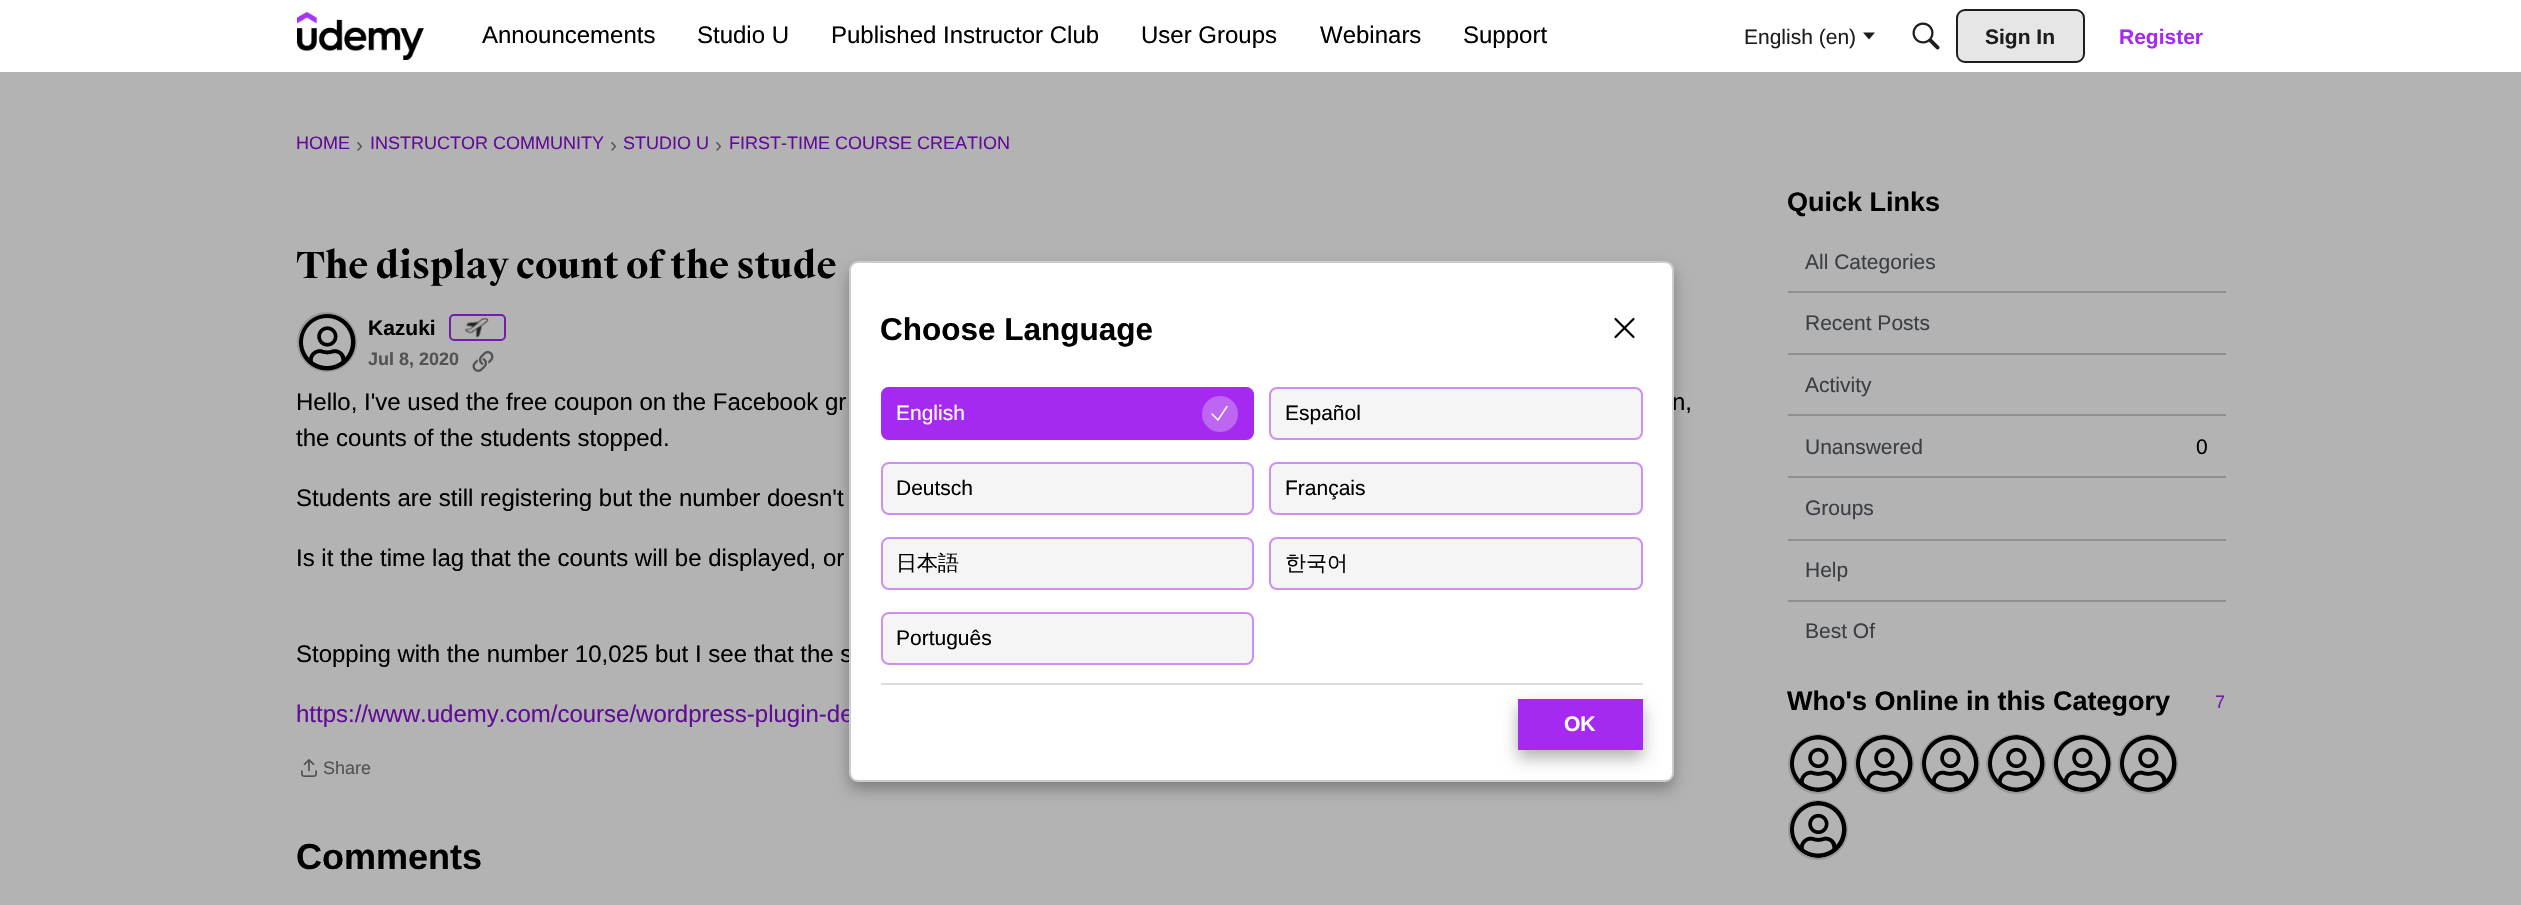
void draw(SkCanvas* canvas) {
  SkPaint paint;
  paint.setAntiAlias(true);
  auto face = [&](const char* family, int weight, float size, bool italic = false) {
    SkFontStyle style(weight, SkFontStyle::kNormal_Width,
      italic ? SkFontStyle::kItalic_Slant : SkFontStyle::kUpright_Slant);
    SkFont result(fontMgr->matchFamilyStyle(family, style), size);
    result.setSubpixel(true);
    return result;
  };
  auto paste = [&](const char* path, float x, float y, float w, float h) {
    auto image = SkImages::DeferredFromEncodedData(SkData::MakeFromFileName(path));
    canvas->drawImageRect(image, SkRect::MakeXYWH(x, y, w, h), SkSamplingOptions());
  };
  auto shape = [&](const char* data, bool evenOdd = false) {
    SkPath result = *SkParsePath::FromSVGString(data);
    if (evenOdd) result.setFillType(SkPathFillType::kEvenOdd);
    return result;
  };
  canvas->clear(0xffb3b3b3);
  paint.setColor(0xffffffff);
  canvas->drawRect(SkRect::MakeXYWH(0, 0, 2521, 72), paint);
  paste("img/1.png", 297, 12, 127, 48);
  paint.setColor(0xff1c1d1f);
  canvas->drawPath(shape("M1863 32.5H1875L1869 39.5Z"), paint);
  paste("img/2.png", 1912, 22, 28, 28);
  paint.setColor(0xffe6e6e6);
  canvas->drawRoundRect(SkRect::MakeXYWH(1957, 10, 127, 52), 8, 8, paint);
  paint.setStroke(true);
  paint.setStrokeWidth(2);
  paint.setColor(0xff1c1d1f);
  canvas->drawRoundRect(SkRect::MakeXYWH(1957, 10, 127, 52), 8, 8, paint);
  paint.setColor(0xff989898);
  canvas->drawCircle(327, 342, 29, paint);
  paste("img/3.png", 299, 314, 57, 57);
  paint.setColor(0xff731da8);
  canvas->drawRoundRect(SkRect::MakeXYWH(450, 315, 55, 25), 4, 4, paint);
  paste("img/4.png", 465, 317, 24, 21);
  paste("img/5.png", 472, 351, 22, 21);
  paste("img/6.png", 301, 759, 16, 18);
  paint.setStroke(false);
  {
    const struct { float x, y, w, h; SkColor color; } items[] = {
      {1788, 291, 438, 2, 0xff8f8f8f},
      {1788, 353, 438, 2, 0xff8f8f8f},
      {1788, 414, 438, 2, 0xff8f8f8f},
      {1788, 476, 438, 2, 0xff8f8f8f},
      {1788, 539, 438, 2, 0xff8f8f8f},
      {1788, 600, 438, 2, 0xff8f8f8f},
    };
    for (auto [x, y, w, h, color] : items) {
      paint.setColor(color);
      canvas->drawRect(SkRect::MakeXYWH(x, y, w, h), paint);
    }
  }
  paint.setStroke(true);
  paint.setColor(0xff989898);
  canvas->drawCircle(1818, 764, 29, paint);
  paste("img/7.png", 1790, 735, 57, 57);
  canvas->drawCircle(1884, 764, 29, paint);
  paste("img/7.png", 1856, 735, 57, 57);
  canvas->drawCircle(1950, 764, 29, paint);
  paste("img/7.png", 1922, 735, 57, 57);
  canvas->drawCircle(2016, 764, 29, paint);
  paste("img/7.png", 1988, 735, 57, 57);
  canvas->drawCircle(2082, 764, 29, paint);
  paste("img/7.png", 2054, 735, 57, 57);
  canvas->drawCircle(2148, 764, 29, paint);
  paste("img/7.png", 2120, 735, 57, 57);
  canvas->drawCircle(1818, 830, 29, paint);
  paste("img/7.png", 1790, 801, 57, 57);
  paint.setStroke(false);
  paint.setColor(0x4d000000);
  paint.setMaskFilter(SkMaskFilter::MakeBlur(kNormal_SkBlurStyle, 7.5f));
  canvas->drawRoundRect(SkRect::MakeXYWH(849, 269, 825, 520), 9, 9, paint);
  paint.setMaskFilter(nullptr);
  auto f0 = face("Liberation Sans", 400, 24);
  paint.setColor(0xff000000);
  {
    const struct { const char* s; float x, y; } items[] = {
      {"Announcements", 482, 43},
      {"Studio U", 697, 43},
      {"Published Instructor Club", 831, 43},
      {"User Groups", 1141, 43},
      {"Webinars", 1320, 43},
      {"Support", 1463, 43},
    };
    for (auto [s, x, y] : items) {
      canvas->drawString(s, x, y, f0, paint);
    }
  }
  auto f1 = face("Liberation Sans", 400, 21);
  paint.setColor(0xff1c1d1f);
  canvas->drawString("English (en)", 1744, 44, f1, paint);
  auto f2 = face("Liberation Sans", 700, 21);
  canvas->drawString("Sign In", 1985, 44, f2, paint);
  paint.setColor(0xffa529f0);
  canvas->drawString("Register", 2119, 44, f2, paint);
  auto f3 = face("Liberation Sans", 400, 18);
  paint.setColor(0xff610b96);
  canvas->drawString("HOME", 296, 149, f3, paint);
  paint.setColor(0xff5a5a5a);
  canvas->drawString("›", 356, 152, f1, paint);
  paint.setColor(0xff610b96);
  canvas->drawString("INSTRUCTOR COMMUNITY", 370, 149, f3, paint);
  paint.setColor(0xff5a5a5a);
  canvas->drawString("›", 610, 152, f1, paint);
  paint.setColor(0xff610b96);
  canvas->drawString("STUDIO U", 623, 149, f3, paint);
  paint.setColor(0xff5a5a5a);
  canvas->drawString("›", 715, 152, f1, paint);
  paint.setColor(0xff610b96);
  canvas->drawString("FIRST-TIME COURSE CREATION", 729, 149, f3, paint);
  auto f4 = face("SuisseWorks", 700, 36);
  paint.setColor(0xff000000);
  canvas->drawString("The display count of the stude", 296, 278, f4, paint);
  canvas->drawString("Kazuki", 368, 335, f2, paint);
  auto f5 = face("Liberation Sans", 700, 18);
  paint.setColor(0xff535353);
  canvas->drawString("Jul 8, 2020", 368, 365, f5, paint);
  paint.setColor(0xff000000);
  {
    const struct { const char* s; float x, y; } items[] = {
      {"Hello, I've used the free coupon on the Facebook gr", 296, 410},
      {"n,", 1672, 410},
      {"the counts of the students stopped.", 296, 446},
      {"Students are still registering but the number doesn't", 296, 506},
      {"Is it the time lag that the counts will be displayed, or", 296, 566},
      {"Stopping with the number 10,025 but I see that the s", 296, 662},
    };
    for (auto [s, x, y] : items) {
      canvas->drawString(s, x, y, f0, paint);
    }
  }
  paint.setColor(0xff610b96);
  canvas->drawString("https://www.udemy.com/course/wordpress-plugin-de", 296, 722, f0, paint);
  paint.setColor(0xff535353);
  canvas->drawString("Share", 323, 774, f3, paint);
  auto f6 = face("Liberation Sans", 700, 36);
  paint.setColor(0xff000000);
  canvas->drawString("Comments", 296, 869, f6, paint);
  auto f7 = face("Liberation Sans", 700, 27);
  canvas->drawString("Quick Links", 1787, 211, f7, paint);
  paint.setColor(0xff3b3f45);
  {
    const struct { const char* s; float x, y; } items[] = {
      {"All Categories", 1805, 269},
      {"Recent Posts", 1805, 330},
      {"Activity", 1805, 392},
      {"Unanswered", 1805, 454},
    };
    for (auto [s, x, y] : items) {
      canvas->drawString(s, x, y, f1, paint);
    }
  }
  paint.setColor(0xff000000);
  canvas->drawString("0", 2196, 454, f1, paint);
  paint.setColor(0xff3b3f45);
  {
    const struct { const char* s; float x, y; } items[] = {
      {"Groups", 1805, 515},
      {"Help", 1805, 577},
      {"Best Of", 1805, 638},
    };
    for (auto [s, x, y] : items) {
      canvas->drawString(s, x, y, f1, paint);
    }
  }
  paint.setColor(0xff000000);
  canvas->drawString("Who's Online in this Category", 1787, 710, f7, paint);
  paint.setColor(0xff731da8);
  canvas->drawString("7", 2215, 708, f3, paint);
  paint.setColor(0xffffffff);
  canvas->drawRoundRect(SkRect::MakeXYWH(850, 262, 823, 519), 8, 8, paint);
  paint.setStroke(true);
  paint.setColor(0xffcccccc);
  canvas->drawRoundRect(SkRect::MakeXYWH(850, 262, 823, 519), 8, 8, paint);
  auto f8 = face("Liberation Sans", 700, 31.5f);
  paint.setStroke(false);
  paint.setColor(0xff000000);
  canvas->drawString("Choose Language", 880, 340, f8, paint);
  paint.setStroke(true);
  paint.setStrokeWidth(2.2f);
  paint.setStrokeCap(SkPaint::kRound_Cap);
  paint.setStrokeJoin(SkPaint::kRound_Join);
  canvas->drawPath(shape("M1615.5 337L1633.5 319M1615.5 319L1633.5 337"), paint);
  paint.setStroke(false);
  paint.setColor(0xffa529f0);
  canvas->drawRoundRect(SkRect::MakeXYWH(881, 387, 373, 53), 8, 8, paint);
  paint.setStroke(true);
  paint.setStrokeWidth(2);
  paint.setStrokeCap(SkPaint::kButt_Cap);
  paint.setStrokeJoin(SkPaint::kMiter_Join);
  paint.setColor(0x80a529f0);
  canvas->drawRoundRect(SkRect::MakeXYWH(882, 388, 371, 51), 7, 7, paint);
  paint.setStroke(false);
  paint.setColor(0xffffffff);
  canvas->drawString("English", 896, 420, f1, paint);
  paint.setColor(0xffbc66f1);
  canvas->drawCircle(1220, 414, 18, paint);
  paint.setStroke(true);
  paint.setStrokeWidth(1.5f);
  paint.setStrokeCap(SkPaint::kRound_Cap);
  paint.setStrokeJoin(SkPaint::kRound_Join);
  paint.setColor(0xffffffff);
  canvas->drawPath(shape("M1212 414L1218 420L1227 406.5"), paint);
  paint.setStroke(false);
  paint.setColor(0xfff5f5f6);
  canvas->drawRoundRect(SkRect::MakeXYWH(1269, 387, 374, 53), 8, 8, paint);
  paint.setStroke(true);
  paint.setStrokeWidth(2);
  paint.setStrokeCap(SkPaint::kButt_Cap);
  paint.setStrokeJoin(SkPaint::kMiter_Join);
  paint.setColor(0x80a529f0);
  canvas->drawRoundRect(SkRect::MakeXYWH(1270, 388, 372, 51), 7, 7, paint);
  paint.setStroke(false);
  paint.setColor(0xff000000);
  canvas->drawString("Español", 1285, 420, f1, paint);
  paint.setColor(0xfff5f5f6);
  canvas->drawRoundRect(SkRect::MakeXYWH(881, 462, 373, 53), 8, 8, paint);
  paint.setStroke(true);
  paint.setColor(0x80a529f0);
  canvas->drawRoundRect(SkRect::MakeXYWH(882, 463, 371, 51), 7, 7, paint);
  paint.setStroke(false);
  paint.setColor(0xff000000);
  canvas->drawString("Deutsch", 896, 495, f1, paint);
  paint.setColor(0xfff5f5f6);
  canvas->drawRoundRect(SkRect::MakeXYWH(1269, 462, 374, 53), 8, 8, paint);
  paint.setStroke(true);
  paint.setColor(0x80a529f0);
  canvas->drawRoundRect(SkRect::MakeXYWH(1270, 463, 372, 51), 7, 7, paint);
  paint.setStroke(false);
  paint.setColor(0xff000000);
  canvas->drawString("Français", 1285, 495, f1, paint);
  paint.setColor(0xfff5f5f6);
  canvas->drawRoundRect(SkRect::MakeXYWH(881, 537, 373, 53), 8, 8, paint);
  paint.setStroke(true);
  paint.setColor(0x80a529f0);
  canvas->drawRoundRect(SkRect::MakeXYWH(882, 538, 371, 51), 7, 7, paint);
  auto f9 = face("WenQuanYi Zen Hei", 500, 21);
  paint.setStroke(false);
  paint.setColor(0xff000000);
  canvas->drawString("日本語", 896, 570, f9, paint);
  paint.setColor(0xfff5f5f6);
  canvas->drawRoundRect(SkRect::MakeXYWH(1269, 537, 374, 53), 8, 8, paint);
  paint.setStroke(true);
  paint.setColor(0x80a529f0);
  canvas->drawRoundRect(SkRect::MakeXYWH(1270, 538, 372, 51), 7, 7, paint);
  paint.setStroke(false);
  paint.setColor(0xff000000);
  canvas->drawString("한국어", 1285, 570, f9, paint);
  paint.setColor(0xfff5f5f6);
  canvas->drawRoundRect(SkRect::MakeXYWH(881, 612, 373, 53), 8, 8, paint);
  paint.setStroke(true);
  paint.setColor(0x80a529f0);
  canvas->drawRoundRect(SkRect::MakeXYWH(882, 613, 371, 51), 7, 7, paint);
  paint.setStroke(false);
  paint.setColor(0xff000000);
  canvas->drawString("Português", 896, 645, f1, paint);
  paint.setColor(0xffdddddd);
  canvas->drawRect(SkRect::MakeXYWH(881, 683, 762, 2), paint);
  paint.setColor(0x4d000000);
  paint.setMaskFilter(SkMaskFilter::MakeBlur(kNormal_SkBlurStyle, 7.5f));
  canvas->drawRect(SkRect::MakeXYWH(1518, 707, 125, 51), paint);
  paint.setMaskFilter(nullptr);
  paint.setColor(0xffa529f0);
  canvas->drawRect(SkRect::MakeXYWH(1518, 699, 125, 51), paint);
  paint.setColor(0xffffffff);
  canvas->drawString("OK", 1564, 731, f2, paint);
}
